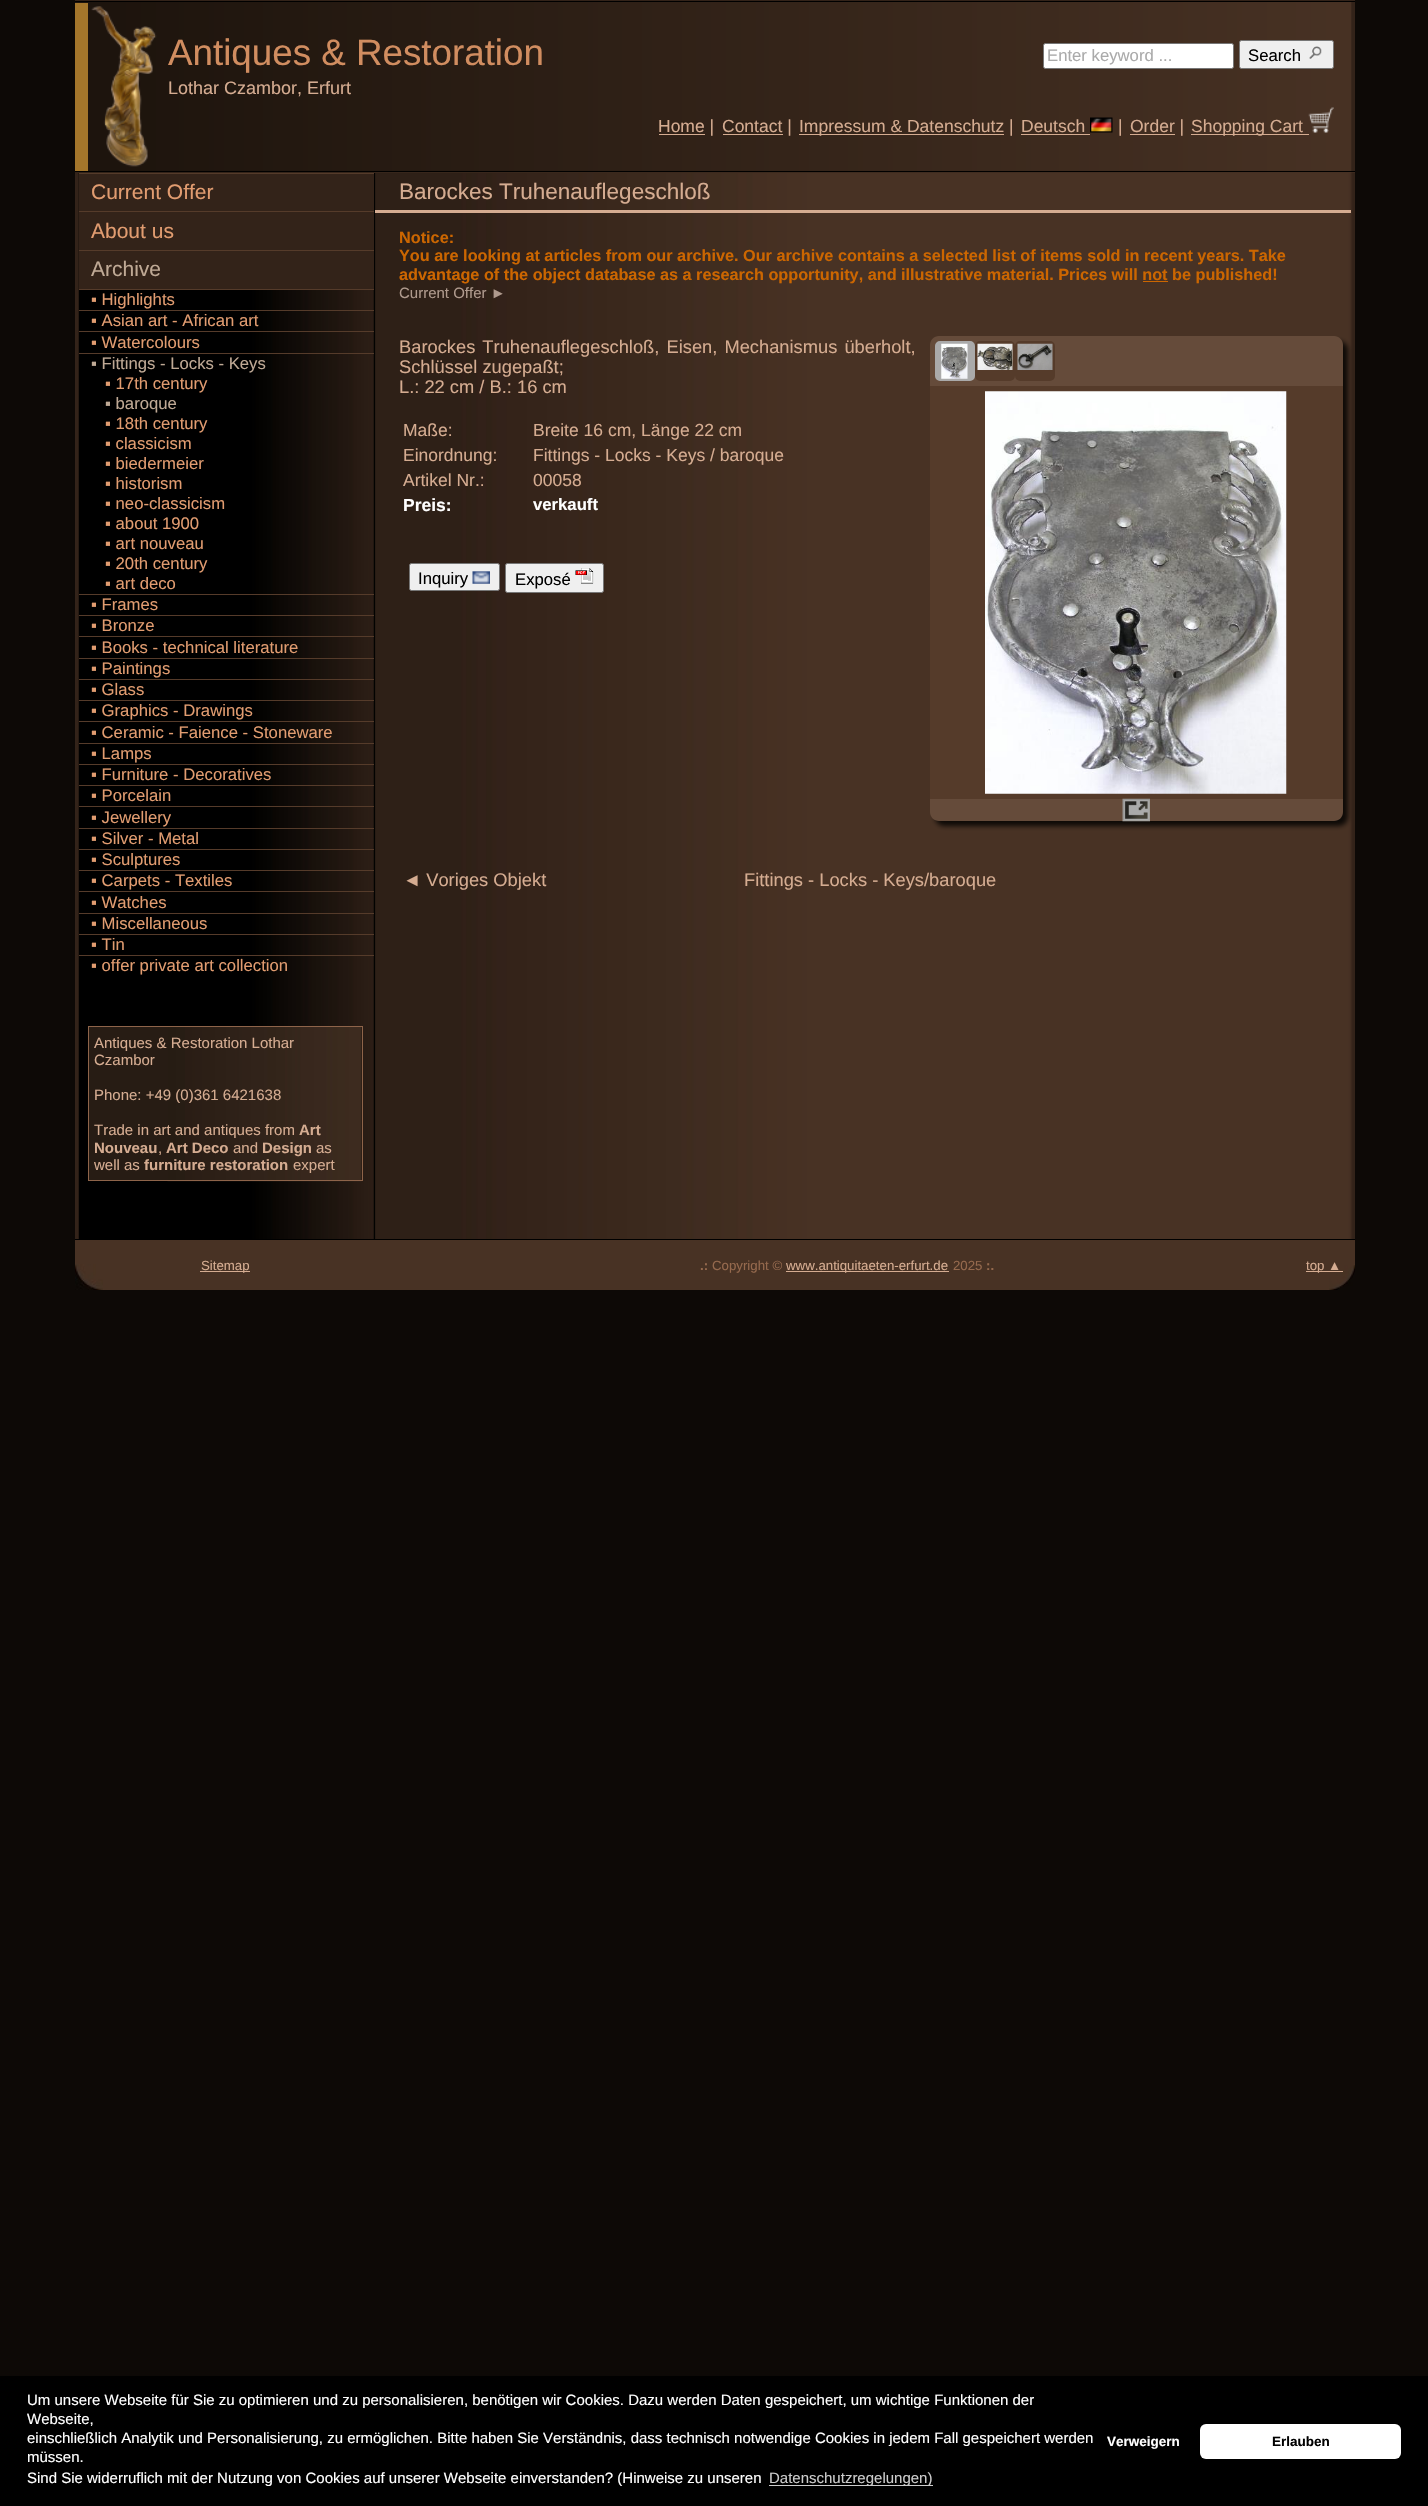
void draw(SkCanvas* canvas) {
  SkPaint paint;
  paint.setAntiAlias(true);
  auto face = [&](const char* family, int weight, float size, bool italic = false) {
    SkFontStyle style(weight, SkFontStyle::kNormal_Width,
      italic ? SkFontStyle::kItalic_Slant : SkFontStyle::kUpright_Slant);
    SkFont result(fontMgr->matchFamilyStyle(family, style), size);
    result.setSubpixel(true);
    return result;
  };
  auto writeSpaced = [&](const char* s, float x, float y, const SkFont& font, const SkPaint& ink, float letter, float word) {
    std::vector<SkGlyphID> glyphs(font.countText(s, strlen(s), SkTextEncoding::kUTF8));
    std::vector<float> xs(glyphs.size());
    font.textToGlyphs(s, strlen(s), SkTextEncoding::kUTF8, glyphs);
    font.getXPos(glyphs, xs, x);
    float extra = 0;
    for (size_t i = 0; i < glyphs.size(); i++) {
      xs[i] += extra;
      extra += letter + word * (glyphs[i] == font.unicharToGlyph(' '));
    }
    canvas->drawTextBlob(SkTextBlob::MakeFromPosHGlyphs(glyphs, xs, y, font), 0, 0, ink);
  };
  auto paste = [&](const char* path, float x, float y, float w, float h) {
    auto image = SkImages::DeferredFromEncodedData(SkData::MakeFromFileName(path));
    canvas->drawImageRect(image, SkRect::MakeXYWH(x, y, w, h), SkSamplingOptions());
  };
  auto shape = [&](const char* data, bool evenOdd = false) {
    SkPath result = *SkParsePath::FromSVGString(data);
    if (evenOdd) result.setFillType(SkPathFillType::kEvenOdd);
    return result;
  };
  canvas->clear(0xff0d0906);
  paste("img/1.png", 75, 173, 1280, 1066);
  paint.setColor(0xff332319);
  canvas->drawRect(SkRect::MakeXYWH(75, 0, 1280, 1), paint);
  paint.setColor(0xff483224);
  canvas->drawRect(SkRect::MakeXYWH(75, 172, 1280, 1), paint);
  paste("img/2.png", 75, 2, 1280, 171);
  {
    const struct { float x, y, w, h; SkColor color; } items[] = {
      {75, 1, 1280, 1, 0xff000000},
      {75, 171, 1280, 1, 0xff000000},
      {75, 3, 13, 168, 0xffa4762b},
    };
    for (auto [x, y, w, h, color] : items) {
      paint.setColor(color);
      canvas->drawRect(SkRect::MakeXYWH(x, y, w, h), paint);
    }
  }
  paste("img/3.png", 91, 6, 66, 161);
  paint.setColor(0xffffffff);
  canvas->drawRoundRect(SkRect::MakeXYWH(1043.5f, 43.5f, 190, 25), 2, 2, paint);
  paint.setStroke(true);
  paint.setStrokeWidth(1);
  paint.setColor(0xff767676);
  canvas->drawRoundRect(SkRect::MakeXYWH(1043.5f, 43.5f, 190, 25), 2, 2, paint);
  paint.setStroke(false);
  paint.setColor(0xffefefef);
  canvas->drawRoundRect(SkRect::MakeXYWH(1239.5f, 40.5f, 94, 28), 2, 2, paint);
  paint.setStroke(true);
  paint.setColor(0xff767676);
  canvas->drawRoundRect(SkRect::MakeXYWH(1239.5f, 40.5f, 94, 28), 2, 2, paint);
  paste("img/4.png", 1309, 46, 13, 13);
  paint.setStroke(false);
  {
    const struct { float x, y, w, h; SkColor color; } items[] = {
      {659, 134, 46, 1, 0xffd5ac91},
      {723, 134, 60, 1, 0xffd5ac91},
      {799, 134, 205, 1, 0xffd5ac91},
      {1021, 134, 69, 1, 0xffd5ac91},
    };
    for (auto [x, y, w, h, color] : items) {
      paint.setColor(color);
      canvas->drawRect(SkRect::MakeXYWH(x, y, w, h), paint);
    }
  }
  paste("img/5.png", 1090, 117, 23, 16);
  canvas->drawRect(SkRect::MakeXYWH(1130, 134, 45, 1), paint);
  canvas->drawRect(SkRect::MakeXYWH(1191, 134, 118, 1), paint);
  paste("img/6.png", 1308, 107, 26, 26);
  {
    const struct { float x, y, w, h; SkColor color; } items[] = {
      {79, 174, 295, 37, 0xff332319},
      {79, 173, 295, 1, 0xff553b2a},
      {79, 212, 295, 38, 0xff332319},
      {79, 211, 295, 1, 0xff553b2a},
      {79, 251, 295, 38, 0xff332319},
      {79, 250, 295, 1, 0xff553b2a},
      {79, 289, 295, 1, 0xff553b2a},
      {79, 310, 295, 1, 0xff553b2a},
      {79, 331, 295, 1, 0xff553b2a},
      {79, 353, 295, 1, 0xff553b2a},
      {79, 594, 295, 1, 0xff553b2a},
      {79, 615, 295, 1, 0xff553b2a},
      {79, 636, 295, 1, 0xff553b2a},
      {79, 658, 295, 1, 0xff553b2a},
      {79, 679, 295, 1, 0xff553b2a},
      {79, 700, 295, 1, 0xff553b2a},
      {79, 721, 295, 1, 0xff553b2a},
      {79, 743, 295, 1, 0xff553b2a},
      {79, 764, 295, 1, 0xff553b2a},
      {79, 785, 295, 1, 0xff553b2a},
      {79, 806, 295, 1, 0xff553b2a},
      {79, 828, 295, 1, 0xff553b2a},
      {79, 849, 295, 1, 0xff553b2a},
      {79, 870, 295, 1, 0xff553b2a},
      {79, 891, 295, 1, 0xff553b2a},
      {79, 913, 295, 1, 0xff553b2a},
      {79, 934, 295, 1, 0xff553b2a},
      {79, 955, 295, 1, 0xff553b2a},
      {89, 1027, 265, 153, 0xff271c14},
    };
    for (auto [x, y, w, h, color] : items) {
      paint.setColor(color);
      canvas->drawRect(SkRect::MakeXYWH(x, y, w, h), paint);
    }
  }
  paste("img/7.png", 167, 1027, 195, 155);
  paint.setStroke(true);
  paint.setColor(0xff8e644a);
  canvas->drawRect(SkRect::MakeXYWH(88.5f, 1026.5f, 274, 154), paint);
  paint.setStroke(false);
  paint.setColor(0xffd5ac91);
  canvas->drawRect(SkRect::MakeXYWH(375, 210, 976, 3), paint);
  paint.setColor(0xffcc6600);
  canvas->drawRect(SkRect::MakeXYWH(1143, 281, 25, 1), paint);
  paint.setColor(0xffefefef);
  canvas->drawRoundRect(SkRect::MakeXYWH(409.5f, 563.5f, 90, 27), 2, 2, paint);
  paint.setStroke(true);
  paint.setColor(0xff767676);
  canvas->drawRoundRect(SkRect::MakeXYWH(409.5f, 563.5f, 90, 27), 2, 2, paint);
  paste("img/8.png", 472, 571, 18, 13);
  paint.setStroke(false);
  paint.setColor(0xffefefef);
  canvas->drawRoundRect(SkRect::MakeXYWH(505.5f, 563.5f, 98, 29), 2, 2, paint);
  paint.setStroke(true);
  paint.setColor(0xff767676);
  canvas->drawRoundRect(SkRect::MakeXYWH(505.5f, 563.5f, 98, 29), 2, 2, paint);
  paste("img/9.png", 575, 568, 19, 16);
  paint.setStroke(false);
  paint.setColor(0xff0d0906);
  paint.setMaskFilter(SkMaskFilter::MakeBlur(kNormal_SkBlurStyle, 2.5f));
  canvas->drawRoundRect(SkRect::MakeXYWH(935, 341, 413, 485), 9, 9, paint);
  paint.setMaskFilter(nullptr);
  paint.setColor(0xff654b3a);
  canvas->drawPath(shape("M939 336H1334C1339 336 1343 340 1343 345V386H930V345C930 340 934 336 939 336Z"), paint);
  paint.setColor(0xffaaaaaa);
  canvas->drawRoundRect(SkRect::MakeXYWH(936.5f, 342.5f, 37, 37), 3.5f, 3.5f, paint);
  paint.setStroke(true);
  paint.setStrokeWidth(3);
  canvas->drawRoundRect(SkRect::MakeXYWH(936.5f, 342.5f, 37, 37), 3.5f, 3.5f, paint);
  paste("img/10.png", 941, 343, 27, 36);
  paint.setStroke(false);
  paint.setColor(0xff553b2a);
  canvas->drawRoundRect(SkRect::MakeXYWH(976.5f, 342.5f, 37, 37), 3.5f, 3.5f, paint);
  paint.setStroke(true);
  canvas->drawRoundRect(SkRect::MakeXYWH(976.5f, 342.5f, 37, 37), 3.5f, 3.5f, paint);
  paste("img/11.png", 977, 343, 36, 27);
  paint.setStroke(false);
  canvas->drawRoundRect(SkRect::MakeXYWH(1016.5f, 342.5f, 37, 37), 3.5f, 3.5f, paint);
  paint.setStroke(true);
  canvas->drawRoundRect(SkRect::MakeXYWH(1016.5f, 342.5f, 37, 37), 3.5f, 3.5f, paint);
  paste("img/12.png", 1017, 343, 36, 27);
  paint.setStroke(false);
  canvas->drawRect(SkRect::MakeXYWH(930, 386, 413, 413), paint);
  paste("img/13.png", 985, 391, 302, 403);
  paint.setColor(0xff654b3a);
  canvas->drawPath(shape("M930 799H1343V812C1343 817 1339 821 1334 821H939C934 821 930 817 930 812Z"), paint);
  paint.setColor(0xffaaaaaa);
  canvas->drawRect(SkRect::MakeXYWH(1123, 799, 26, 22), paint);
  paste("img/14.png", 1122, 798, 28, 24);
  paint.setColor(0xff000000);
  canvas->drawRect(SkRect::MakeXYWH(75, 1239, 1280, 1), paint);
  paint.setColor(0xff483224);
  canvas->drawRect(SkRect::MakeXYWH(75, 1240, 1280, 50), paint);
  paste("img/15.png", 75, 1264, 28, 26);
  paint.setColor(0xffd5ac91);
  canvas->drawRect(SkRect::MakeXYWH(200, 1271, 50, 1), paint);
  paste("img/16.png", 1329, 1265, 26, 25);
  {
    const struct { float x, y, w, h; SkColor color; } items[] = {
      {786, 1271, 163, 1, 0xffd5ac91},
      {1306, 1271, 37, 1, 0xffd5ac91},
      {0, 2376, 1428, 130, 0xff000000},
      {769, 2485, 164, 1, 0xffcccccc},
    };
    for (auto [x, y, w, h, color] : items) {
      paint.setColor(color);
      canvas->drawRect(SkRect::MakeXYWH(x, y, w, h), paint);
    }
  }
  paint.setColor(0xffffffff);
  canvas->drawRoundRect(SkRect::MakeXYWH(1200, 2424, 201, 35), 6, 6, paint);
  auto f0 = face("Liberation Sans", 400, 36.75f);
  paint.setColor(0xffd18d60);
  canvas->drawString("Antiques & Restoration", 168, 65, f0, paint);
  auto f1 = face("Liberation Sans", 400, 18);
  paint.setColor(0xffd5ac91);
  canvas->drawString("Lothar Czambor, Erfurt", 168, 94, f1, paint);
  auto f2 = face("Liberation Sans", 400, 16.7f);
  paint.setColor(0xffaaaaaa);
  canvas->drawString("Enter keyword ...", 1047, 61, f2, paint);
  paint.setColor(0xff000000);
  canvas->drawString("Search", 1248, 61, f2, paint);
  auto f3 = face("Liberation Sans", 400, 17.5f);
  paint.setColor(0xffd5ac91);
  {
    const struct { const char* s; float x, y; } items[] = {
      {"Home |", 658, 132},
      {"Contact |", 722, 132},
      {"Impressum & Datenschutz |", 799, 132},
      {"Deutsch", 1021, 132},
      {"|", 1118, 132},
      {"Order |", 1130, 132},
      {"Shopping Cart", 1191, 132},
    };
    for (auto [s, x, y] : items) {
      canvas->drawString(s, x, y, f3, paint);
    }
  }
  auto f4 = face("Liberation Sans", 400, 21);
  paint.setColor(0xffe19c70);
  canvas->drawString("Current Offer", 91, 199, f4, paint);
  canvas->drawString("About us", 91, 238, f4, paint);
  paint.setColor(0xffbfa995);
  canvas->drawString("Archive", 91, 276, f4, paint);
  paint.setColor(0xffe19c70);
  {
    const struct { const char* s; float x, y; } items[] = {
      {"▪ Highlights", 91, 305},
      {"▪ Asian art - African art", 91, 326},
      {"▪ Watercolours", 91, 348},
    };
    for (auto [s, x, y] : items) {
      canvas->drawString(s, x, y, f2, paint);
    }
  }
  paint.setColor(0xffbfa995);
  canvas->drawString("▪ Fittings - Locks - Keys", 91, 369, f2, paint);
  paint.setColor(0xffe19c70);
  canvas->drawString("▪ 17th century", 105, 389, f2, paint);
  paint.setColor(0xffbfa995);
  canvas->drawString("▪ baroque", 105, 409, f2, paint);
  paint.setColor(0xffe19c70);
  {
    const struct { const char* s; float x, y; } items[] = {
      {"▪ 18th century", 105, 429},
      {"▪ classicism", 105, 449},
      {"▪ biedermeier", 105, 469},
      {"▪ historism", 105, 489},
      {"▪ neo-classicism", 105, 509},
      {"▪ about 1900", 105, 529},
      {"▪ art nouveau", 105, 549},
      {"▪ 20th century", 105, 569},
      {"▪ art deco", 105, 589},
      {"▪ Frames", 91, 610},
      {"▪ Bronze", 91, 631},
      {"▪ Books - technical literature", 91, 653},
      {"▪ Paintings", 91, 674},
      {"▪ Glass", 91, 695},
      {"▪ Graphics - Drawings", 91, 716},
      {"▪ Ceramic - Faience - Stoneware", 91, 738},
      {"▪ Lamps", 91, 759},
      {"▪ Furniture - Decoratives", 91, 780},
      {"▪ Porcelain", 91, 801},
      {"▪ Jewellery", 91, 823},
      {"▪ Silver - Metal", 91, 844},
      {"▪ Sculptures", 91, 865},
      {"▪ Carpets - Textiles", 91, 886},
      {"▪ Watches", 91, 908},
      {"▪ Miscellaneous", 91, 929},
      {"▪ Tin", 91, 950},
      {"▪ offer private art collection", 91, 971},
    };
    for (auto [s, x, y] : items) {
      canvas->drawString(s, x, y, f2, paint);
    }
  }
  auto f5 = face("Liberation Sans", 400, 15);
  paint.setColor(0xffd5ac91);
  {
    const struct { const char* s; float x, y; } items[] = {
      {"Antiques & Restoration Lothar", 94, 1048},
      {"Czambor", 94, 1065},
      {"Phone: +49 (0)361 6421638", 94, 1100},
      {"Trade in art and antiques from", 94, 1135},
    };
    for (auto [s, x, y] : items) {
      canvas->drawString(s, x, y, f5, paint);
    }
  }
  auto f6 = face("Liberation Sans", 700, 15);
  canvas->drawString("Art", 299, 1135, f6, paint);
  canvas->drawString("Nouveau", 94, 1153, f6, paint);
  canvas->drawString(",", 158, 1153, f5, paint);
  canvas->drawString("Art Deco", 166, 1153, f6, paint);
  canvas->drawString("and", 233, 1153, f5, paint);
  canvas->drawString("Design", 262, 1153, f6, paint);
  canvas->drawString("as", 316, 1153, f5, paint);
  canvas->drawString("well as", 94, 1170, f5, paint);
  canvas->drawString("furniture restoration", 144, 1170, f6, paint);
  canvas->drawString("expert", 293, 1170, f5, paint);
  auto f7 = face("Liberation Sans", 400, 22.5f);
  canvas->drawString("Barockes Truhenauflegeschloß", 399, 199, f7, paint);
  auto f8 = face("Liberation Sans", 700, 16.25f);
  paint.setColor(0xffcc6600);
  {
    const struct { const char* s; float x, y; } items[] = {
      {"Notice:", 399, 243},
      {"You are looking at articles from our archive. Our archive contains a selected list of items sold in recent years. Take", 399, 261},
      {"advantage of the object database as a research opportunity, and illustrative material. Prices will not be published!", 399, 280},
    };
    for (auto [s, x, y] : items) {
      canvas->drawString(s, x, y, f8, paint);
    }
  }
  paint.setColor(0xffaf9a8d);
  canvas->drawString("Current Offer ►", 399, 298, f5, paint);
  auto f9 = face("Liberation Sans", 400, 18.3f);
  paint.setColor(0xffd5ac91);
  writeSpaced("Barockes Truhenauflegeschloß, Eisen, Mechanismus überholt,", 399, 353, f9, paint, 0, 2);
  canvas->drawString("Schlüssel zugepaßt;", 399, 373, f9, paint);
  canvas->drawString("L.: 22 cm / B.: 16 cm", 399, 393, f9, paint);
  {
    const struct { const char* s; float x, y; } items[] = {
      {"Maße:", 403, 436},
      {"Breite 16 cm, Länge 22 cm", 533, 436},
      {"Einordnung:", 403, 461},
      {"Fittings - Locks - Keys / baroque", 533, 461},
      {"Artikel Nr.:", 403, 486},
      {"00058", 533, 486},
    };
    for (auto [s, x, y] : items) {
      canvas->drawString(s, x, y, f3, paint);
    }
  }
  auto f10 = face("Liberation Sans", 700, 17.5f);
  paint.setColor(0xffffffff);
  canvas->drawString("Preis:", 403, 511, f10, paint);
  auto f11 = face("Liberation Sans", 700, 16.7f);
  canvas->drawString("verkauft", 533, 510, f11, paint);
  paint.setColor(0xff000000);
  canvas->drawString("Inquiry", 418, 584, f2, paint);
  canvas->drawString("Exposé", 515, 585, f2, paint);
  paint.setColor(0xffd5ac91);
  canvas->drawString("◄ Voriges Objekt", 403, 886, f9, paint);
  canvas->drawString("Fittings - Locks - Keys/baroque", 744, 886, f9, paint);
  auto f12 = face("Liberation Sans", 400, 13.25f);
  canvas->drawString("Sitemap", 201, 1270, f12, paint);
  auto f13 = face("Liberation Sans", 700, 13.25f);
  paint.setColor(0xff95694d);
  canvas->drawString(".:", 700, 1270, f13, paint);
  canvas->drawString("Copyright ©", 712, 1270, f12, paint);
  paint.setColor(0xffd5ac91);
  canvas->drawString("www.antiquitaeten-erfurt.de", 786, 1270, f12, paint);
  paint.setColor(0xff95694d);
  canvas->drawString("2025", 953, 1270, f12, paint);
  canvas->drawString(":.", 986, 1270, f13, paint);
  paint.setColor(0xffd5ac91);
  canvas->drawString("top ▲", 1306, 1270, f12, paint);
  paint.setColor(0xffffffff);
  {
    const struct { const char* s; float x, y; } items[] = {
      {"Um unsere Webseite für Sie zu optimieren und zu personalisieren, benötigen wir Cookies. Dazu werden Daten gespeichert, um wichtige Funktionen der", 27, 2405},
      {"Webseite,", 27, 2424},
      {"einschließlich Analytik und Personalisierung, zu ermöglichen. Bitte haben Sie Verständnis, dass technisch notwendige Cookies in jedem Fall gespeichert werden", 27, 2443},
      {"müssen.", 27, 2462},
      {"Sind Sie widerruflich mit der Nutzung von Cookies auf unserer Webseite einverstanden? (Hinweise zu unseren", 27, 2483},
    };
    for (auto [s, x, y] : items) {
      canvas->drawString(s, x, y, f5, paint);
    }
  }
  paint.setColor(0xffcccccc);
  canvas->drawString("Datenschutzregelungen)", 769, 2483, f5, paint);
  auto f14 = face("Liberation Sans", 700, 13.5f);
  paint.setColor(0xffffffff);
  canvas->drawString("Verweigern", 1107, 2446, f14, paint);
  paint.setColor(0xff000000);
  canvas->drawString("Erlauben", 1272, 2446, f14, paint);
}
